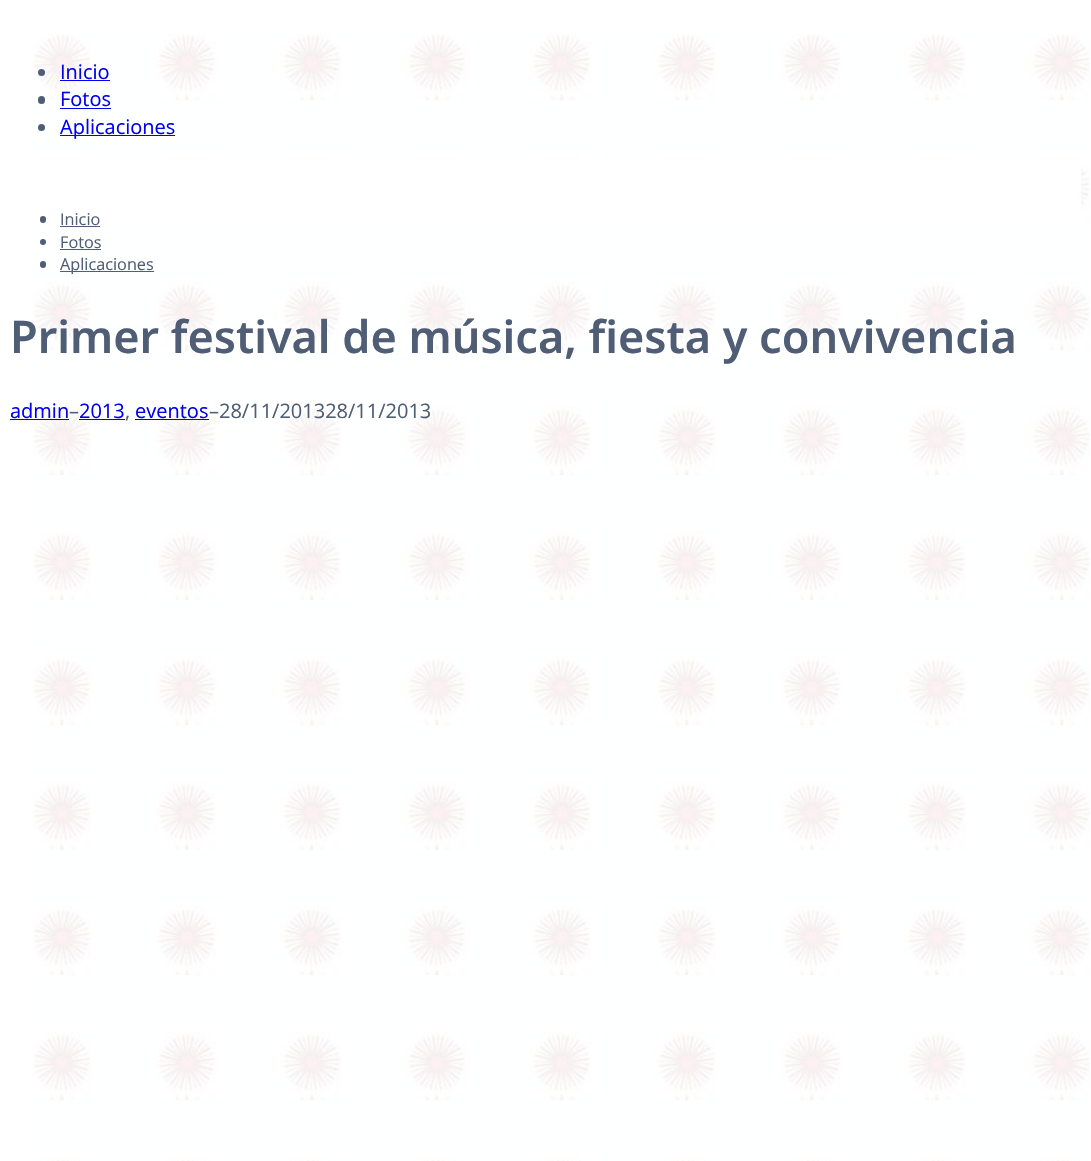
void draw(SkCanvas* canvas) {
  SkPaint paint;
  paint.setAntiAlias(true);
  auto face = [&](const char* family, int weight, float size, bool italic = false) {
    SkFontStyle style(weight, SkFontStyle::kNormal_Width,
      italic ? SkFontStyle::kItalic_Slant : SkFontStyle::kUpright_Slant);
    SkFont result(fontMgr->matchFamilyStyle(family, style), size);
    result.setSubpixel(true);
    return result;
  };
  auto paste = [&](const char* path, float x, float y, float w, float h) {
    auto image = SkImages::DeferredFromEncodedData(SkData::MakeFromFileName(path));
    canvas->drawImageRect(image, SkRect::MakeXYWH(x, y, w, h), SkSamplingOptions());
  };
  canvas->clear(0xffffffff);
  paste("img/1.png", 33, 34, 1057, 1127);
  paint.setColor(0xff4f5d75);
  canvas->drawCircle(41.5f, 72.5f, 3.5f, paint);
  paint.setColor(0xff0000ee);
  canvas->drawRect(SkRect::MakeXYWH(60, 80, 50, 1), paint);
  paint.setColor(0xff4f5d75);
  canvas->drawRoundRect(SkRect::MakeXYWH(38, 96, 7, 8), 3.5f, 3.5f, paint);
  paint.setColor(0xff0000ee);
  canvas->drawRect(SkRect::MakeXYWH(60, 108, 51, 1), paint);
  paint.setColor(0xff4f5d75);
  canvas->drawCircle(41.5f, 127.5f, 3.5f, paint);
  paint.setColor(0xff0000ee);
  canvas->drawRect(SkRect::MakeXYWH(60, 135, 115, 1), paint);
  paint.setColor(0xffffffff);
  canvas->drawRect(SkRect::MakeXYWH(33, 160, 1048, 66), paint);
  paint.setColor(0xff4f5d75);
  canvas->drawRoundRect(SkRect::MakeXYWH(40, 216, 6, 7), 3, 3, paint);
  canvas->drawRect(SkRect::MakeXYWH(60, 226, 40, 1), paint);
  canvas->drawCircle(43, 242, 3, paint);
  canvas->drawRect(SkRect::MakeXYWH(60, 249, 41, 1), paint);
  canvas->drawRoundRect(SkRect::MakeXYWH(40, 261, 6, 7), 3, 3, paint);
  {
    const struct { float x, y, w, h; SkColor color; } items[] = {
      {60, 271, 94, 1, 0xff4f5d75},
      {10, 419, 59, 1, 0xff0000ee},
      {79, 419, 46, 1, 0xff0000ee},
      {135, 419, 74, 1, 0xff0000ee},
    };
    for (auto [x, y, w, h, color] : items) {
      paint.setColor(color);
      canvas->drawRect(SkRect::MakeXYWH(x, y, w, h), paint);
    }
  }
  auto f0 = face("Open Sans", 400, 20);
  {
    const struct { const char* s; float x, y; } items[] = {
      {"Inicio", 60, 79},
      {"Fotos", 60, 106},
      {"Aplicaciones", 60, 134},
    };
    for (auto [s, x, y] : items) {
      canvas->drawString(s, x, y, f0, paint);
    }
  }
  auto f1 = face("Open Sans", 400, 16.25f);
  paint.setColor(0xff4f5d75);
  {
    const struct { const char* s; float x, y; } items[] = {
      {"Inicio", 60, 225},
      {"Fotos", 60, 248},
      {"Aplicaciones", 60, 270},
    };
    for (auto [s, x, y] : items) {
      canvas->drawString(s, x, y, f1, paint);
    }
  }
  auto f2 = face("Noto Sans", 600, 45);
  canvas->drawString("Primer festival de música, fiesta y convivencia", 10, 353, f2, paint);
  paint.setColor(0xff0000ee);
  canvas->drawString("admin", 10, 418, f0, paint);
  paint.setColor(0xff4f5d75);
  canvas->drawString("–", 69, 418, f0, paint);
  paint.setColor(0xff0000ee);
  canvas->drawString("2013", 79, 418, f0, paint);
  canvas->drawString("eventos", 135, 418, f0, paint);
  paint.setColor(0xff4f5d75);
  canvas->drawString("–28/11/201328/11/2013", 209, 418, f0, paint);
  canvas->drawString(",", 125, 418, f0, paint);
}
